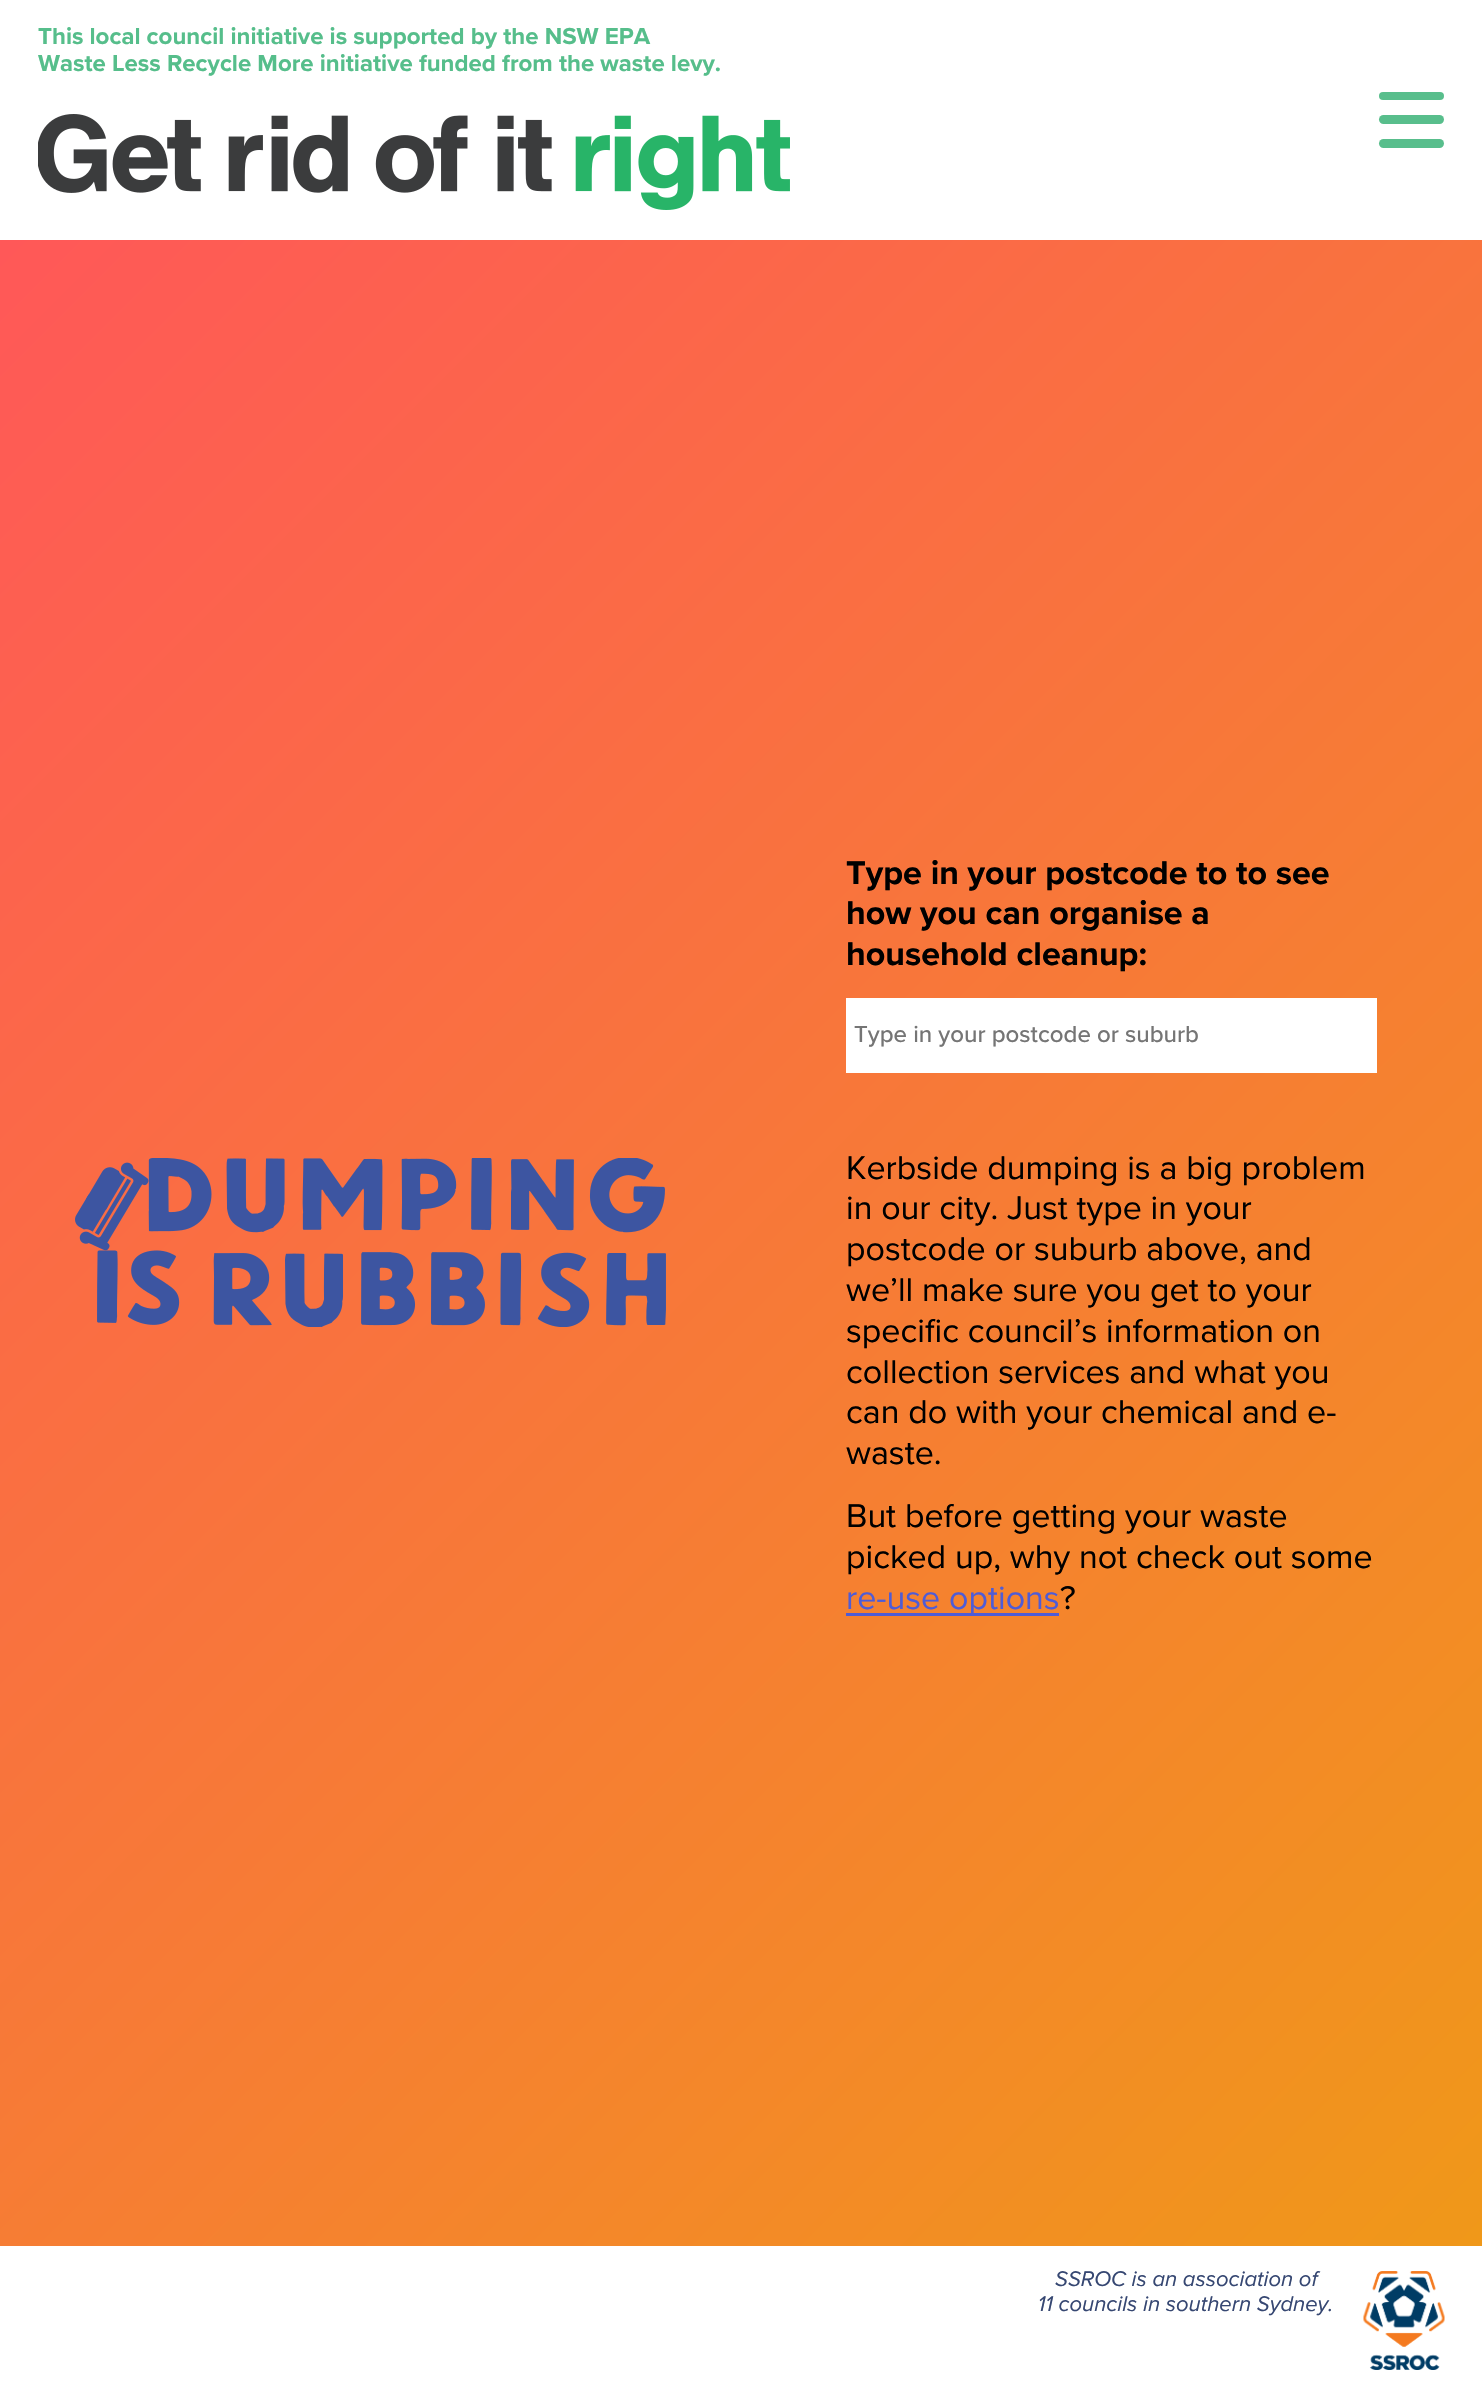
void draw(SkCanvas* canvas) {
  SkPaint paint;
  paint.setAntiAlias(true);
  auto face = [&](const char* family, int weight, float size, bool italic = false) {
    SkFontStyle style(weight, SkFontStyle::kNormal_Width,
      italic ? SkFontStyle::kItalic_Slant : SkFontStyle::kUpright_Slant);
    SkFont result(fontMgr->matchFamilyStyle(family, style), size);
    result.setSubpixel(true);
    return result;
  };
  auto paste = [&](const char* path, float x, float y, float w, float h) {
    auto image = SkImages::DeferredFromEncodedData(SkData::MakeFromFileName(path));
    canvas->drawImageRect(image, SkRect::MakeXYWH(x, y, w, h), SkSamplingOptions());
  };
  canvas->clear(0xffffffff);
  paste("img/1.png", 38, 114, 752, 96);
  paint.setColor(0xff58be8c);
  canvas->drawRoundRect(SkRect::MakeXYWH(1379, 92, 65, 8), 4, 4, paint);
  canvas->drawRoundRect(SkRect::MakeXYWH(1379, 115, 65, 9), 4.5f, 4.5f, paint);
  canvas->drawRoundRect(SkRect::MakeXYWH(1379, 139, 65, 9), 4.5f, 4.5f, paint);
  {
    const SkColor colors[] = {0xffff5858, 0xfff09819};
    const float stops[] = {0, 1};
    const SkPoint ends[] = {{-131, 371}, {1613, 2115}};
    paint.setShader(SkGradientShader::MakeLinear(ends, colors, stops, 2, SkTileMode::kClamp));
    paint.setAlpha(255);
  }
  canvas->drawRect(SkRect::MakeXYWH(0, 240, 1482, 2006), paint);
  paste("img/2.png", 75, 1158, 591, 169);
  paint.setShader(nullptr);
  paint.setColor(0xffffffff);
  canvas->drawRect(SkRect::MakeXYWH(846, 998, 531, 75), paint);
  paint.setColor(0xff4f5cd6);
  canvas->drawRect(SkRect::MakeXYWH(846, 1613, 213, 3), paint);
  paste("img/3.png", 1363, 2271, 82, 99);
  auto f0 = face("Proxima Nova", 700, 24);
  paint.setColor(0xff56be8b);
  canvas->drawString("This local council initiative is supported by the NSW EPA", 38, 44, f0, paint);
  canvas->drawString("Waste Less Recycle More initiative funded from the waste levy.", 38, 71, f0, paint);
  auto f1 = face("Proxima Nova", 700, 34);
  paint.setColor(0xff000000);
  {
    const struct { const char* s; float x, y; } items[] = {
      {"Type in your postcode to to see", 846, 884},
      {"how you can organise a", 846, 924},
      {"household cleanup:", 846, 965},
    };
    for (auto [s, x, y] : items) {
      canvas->drawString(s, x, y, f1, paint);
    }
  }
  auto f2 = face("Proxima Nova", 500, 24);
  paint.setColor(0xff757575);
  canvas->drawString("Type in your postcode or suburb", 854, 1042, f2, paint);
  auto f3 = face("Proxima Nova", 400, 34);
  paint.setColor(0xff000000);
  {
    const struct { const char* s; float x, y; } items[] = {
      {"Kerbside dumping is a big problem", 846, 1179},
      {"in our city. Just type in your", 846, 1219},
      {"postcode or suburb above, and", 846, 1260},
      {"we’ll make sure you get to your", 846, 1301},
      {"specific council’s information on", 846, 1342},
      {"collection services and what you", 846, 1383},
      {"can do with your chemical and e-", 846, 1423},
      {"waste.", 846, 1464},
      {"But before getting your waste", 846, 1527},
      {"picked up, why not check out some", 846, 1568},
    };
    for (auto [s, x, y] : items) {
      canvas->drawString(s, x, y, f3, paint);
    }
  }
  paint.setColor(0xff4f5cd6);
  canvas->drawString("re-use options", 846, 1609, f3, paint);
  paint.setColor(0xff000000);
  canvas->drawString("?", 1060, 1609, f3, paint);
  auto f4 = face("Proxima Nova", 400, 22, true);
  paint.setColor(0xff364772);
  canvas->drawString("SSROC is an association of", 1055, 2286, f4, paint);
  canvas->drawString("11 councils in southern Sydney.", 1038, 2311, f4, paint);
}
